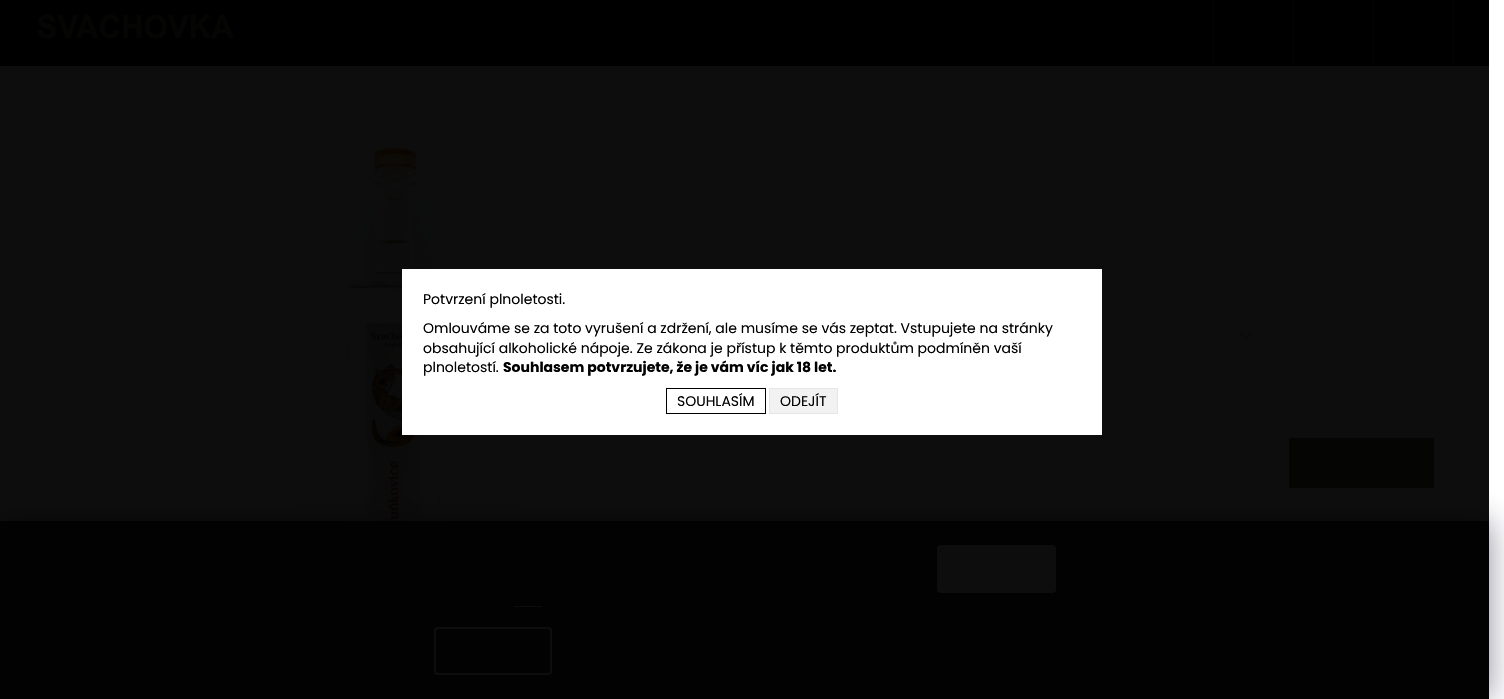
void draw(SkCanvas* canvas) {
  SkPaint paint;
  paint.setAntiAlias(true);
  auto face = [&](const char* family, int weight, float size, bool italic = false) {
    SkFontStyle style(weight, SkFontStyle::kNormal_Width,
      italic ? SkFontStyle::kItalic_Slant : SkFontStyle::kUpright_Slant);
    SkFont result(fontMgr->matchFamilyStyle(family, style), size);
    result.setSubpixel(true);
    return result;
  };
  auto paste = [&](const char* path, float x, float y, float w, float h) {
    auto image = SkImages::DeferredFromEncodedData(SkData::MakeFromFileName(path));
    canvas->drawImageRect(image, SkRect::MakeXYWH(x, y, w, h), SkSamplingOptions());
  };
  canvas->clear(0xffffffff);
  paint.setColor(0xff000000);
  canvas->drawRect(SkRect::MakeXYWH(0, 0, 1489, 66), paint);
  paste("img/1.png", 37, 14, 197, 25);
  {
    const struct { float x, y, w, h; SkColor color; } items[] = {
      {1453, 0, 1, 66, 0xff4d4d4d},
      {1213, 0, 1, 66, 0xff4d4d4d},
      {1293, 0, 1, 66, 0xff4d4d4d},
      {1373, 0, 1, 66, 0xff4d4d4d},
    };
    for (auto [x, y, w, h, color] : items) {
      paint.setColor(color);
      canvas->drawRect(SkRect::MakeXYWH(x, y, w, h), paint);
    }
  }
  paste("img/2.png", 296, 126, 228, 395);
  paste("img/3.png", 1226, 309, 40, 48);
  paint.setStroke(true);
  paint.setStrokeWidth(1);
  paint.setColor(0xffe6e6e6);
  canvas->drawRoundRect(SkRect::MakeXYWH(960.5f, 309.5f, 306, 47), 2.5f, 2.5f, paint);
  paint.setStroke(false);
  {
    const struct { float x, y, w, h; SkColor color; } items[] = {
      {1102, 367, 342, 1, 0xffe7e7e7},
      {1102, 427, 342, 1, 0xffe7e7e7},
      {755, 498, 689, 1, 0xffe7e7e7},
    };
    for (auto [x, y, w, h, color] : items) {
      paint.setColor(color);
      canvas->drawRect(SkRect::MakeXYWH(x, y, w, h), paint);
    }
  }
  paint.setStroke(true);
  paint.setColor(0xffe6e6e6);
  canvas->drawRect(SkRect::MakeXYWH(1133.5f, 438.5f, 145, 49), paint);
  paint.setStroke(false);
  {
    const struct { float x, y, w, h; SkColor color; } items[] = {
      {1181, 439, 1, 48, 0xffe6e6e6},
      {1230, 439, 1, 48, 0xffe6e6e6},
      {1289, 438, 145, 50, 0xff605543},
    };
    for (auto [x, y, w, h, color] : items) {
      paint.setColor(color);
      canvas->drawRect(SkRect::MakeXYWH(x, y, w, h), paint);
    }
  }
  paint.setColor(0x801b1939);
  paint.setMaskFilter(SkMaskFilter::MakeBlur(kNormal_SkBlurStyle, 15));
  canvas->drawRect(SkRect::MakeXYWH(0, 521, 1489, 178), paint);
  paint.setMaskFilter(nullptr);
  paint.setColor(0xff1a1937);
  canvas->drawRect(SkRect::MakeXYWH(0, 521, 1489, 178), paint);
  paint.setColor(0xfff8fafb);
  canvas->drawRoundRect(SkRect::MakeXYWH(937, 545, 119, 48), 4, 4, paint);
  canvas->drawRect(SkRect::MakeXYWH(514, 606, 28, 1), paint);
  paint.setStroke(true);
  paint.setStrokeWidth(2);
  canvas->drawRoundRect(SkRect::MakeXYWH(435, 628, 116, 46), 3, 3, paint);
  paint.setStroke(false);
  paint.setColor(0xf2000000);
  canvas->drawRect(SkRect::MakeXYWH(0, 0, 1489, 699), paint);
  paint.setColor(0xffffffff);
  canvas->drawRect(SkRect::MakeXYWH(402, 269, 700, 166), paint);
  paint.setStroke(true);
  paint.setStrokeWidth(1);
  paint.setColor(0xff000000);
  canvas->drawRect(SkRect::MakeXYWH(666.5f, 388.5f, 99, 25), paint);
  paint.setStroke(false);
  paint.setColor(0xfff2f2f2);
  canvas->drawRect(SkRect::MakeXYWH(769.5f, 388.5f, 68, 25), paint);
  paint.setStroke(true);
  paint.setColor(0xffe6e6e6);
  canvas->drawRect(SkRect::MakeXYWH(769.5f, 388.5f, 68, 25), paint);
  auto f0 = face("Poppins", 400, 14);
  paint.setStroke(false);
  paint.setColor(0xff000000);
  {
    const struct { const char* s; float x, y; } items[] = {
      {"Potvrzení plnoletosti.", 423, 304},
      {"Omlouváme se za toto vyrušení a zdržení, ale musíme se vás zeptat. Vstupujete na stránky", 423, 333},
      {"obsahující alkoholické nápoje. Ze zákona je přístup k těmto produktům podmíněn vaší", 423, 353},
      {"plnoletostí.", 423, 372},
    };
    for (auto [s, x, y] : items) {
      canvas->drawString(s, x, y, f0, paint);
    }
  }
  auto f1 = face("Poppins", 700, 14);
  canvas->drawString("Souhlasem potvrzujete, že je vám víc jak 18 let.", 503, 372, f1, paint);
  canvas->drawString("SOUHLASÍM", 677, 406, f0, paint);
  canvas->drawString("ODEJÍT", 780, 406, f0, paint);
}
